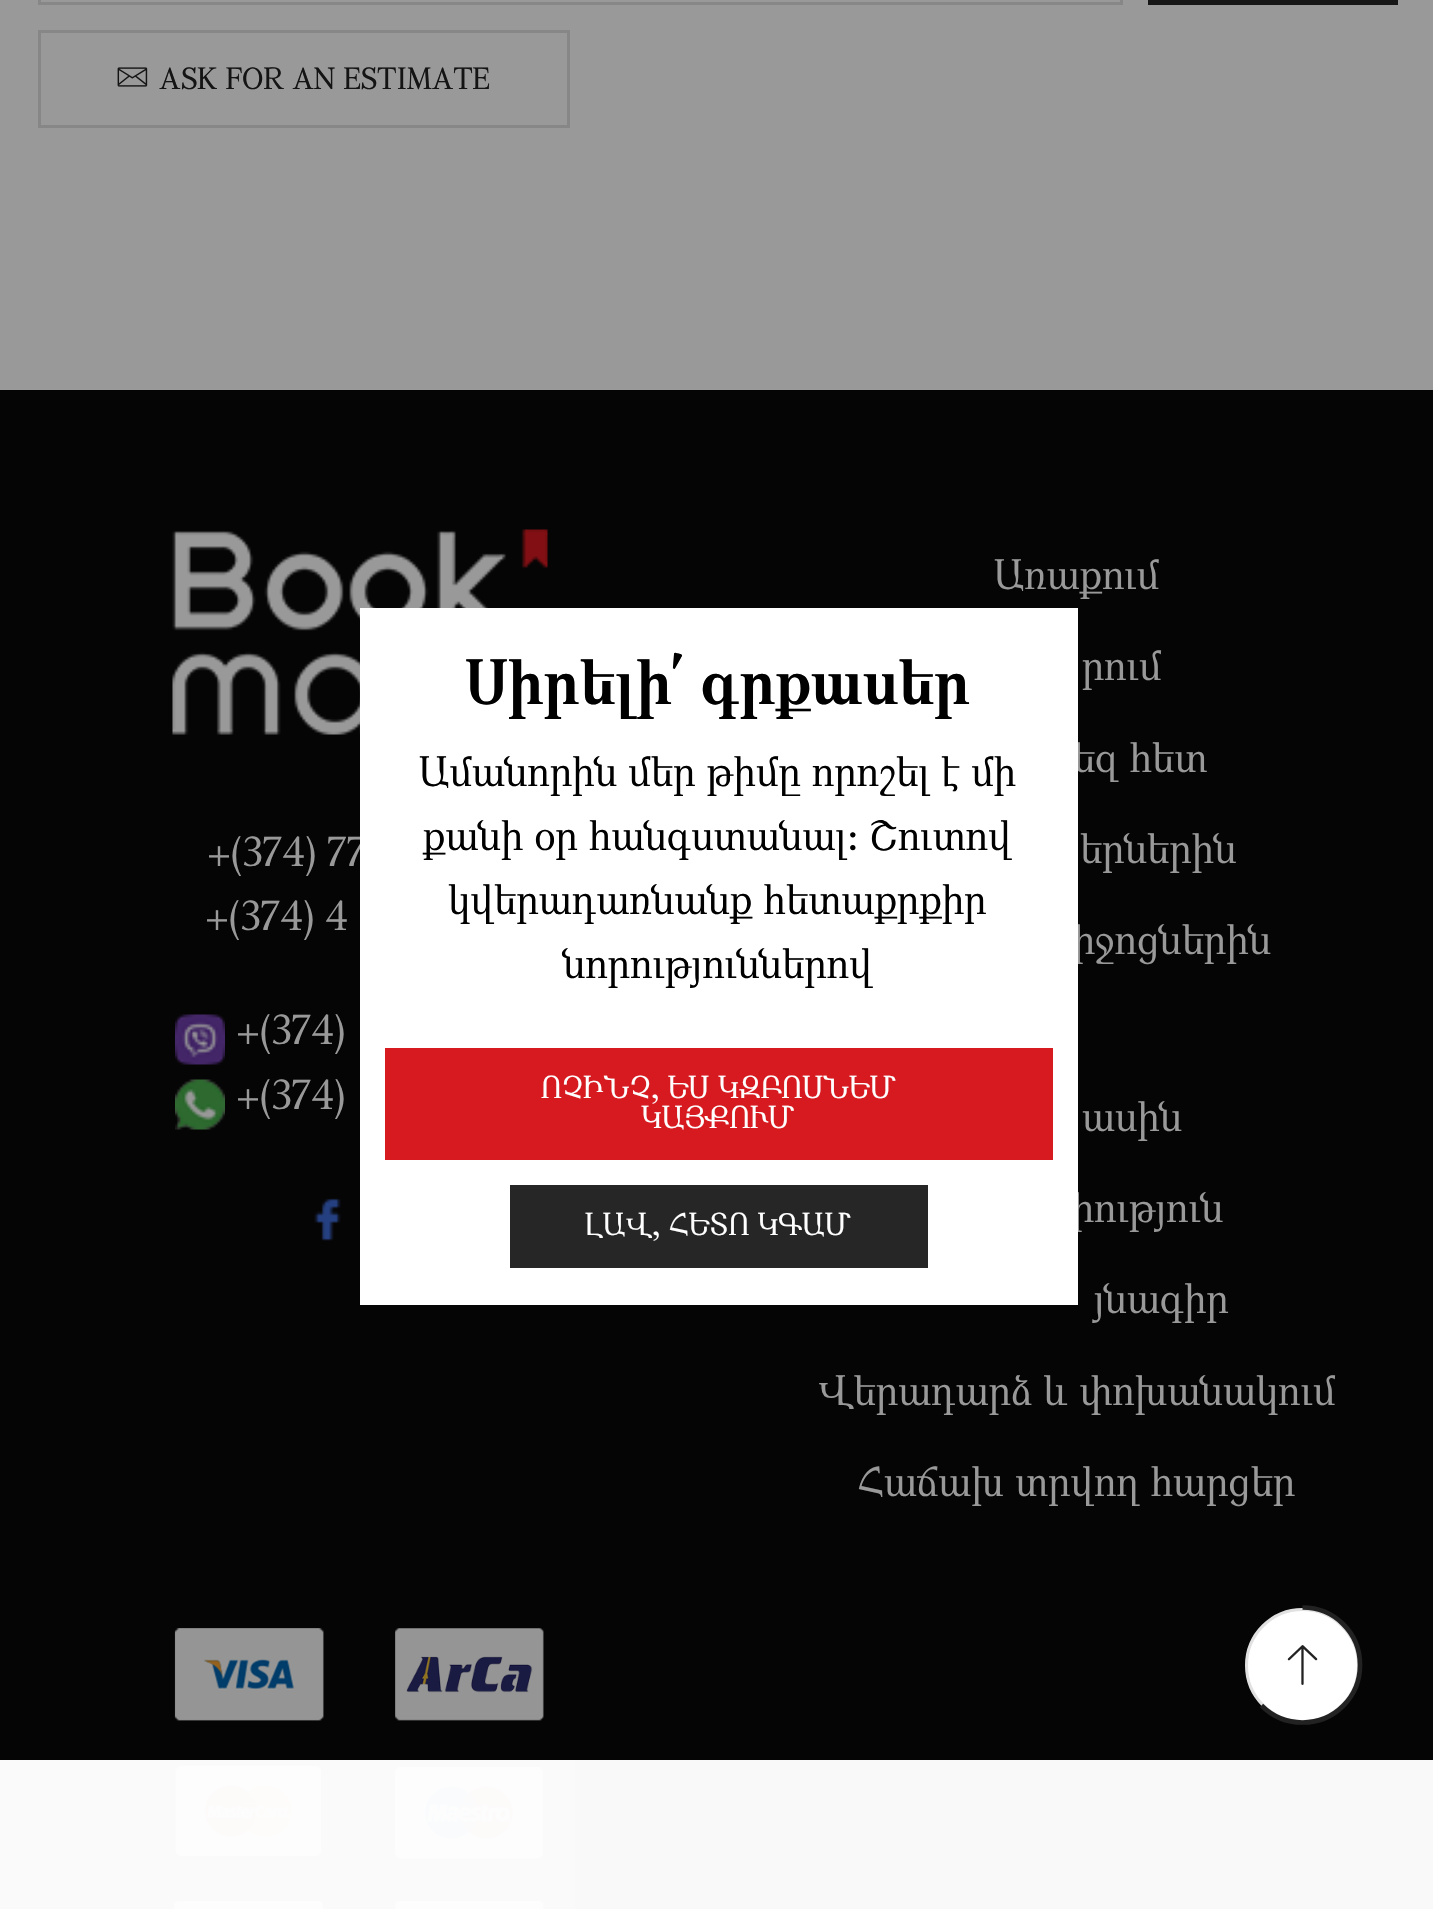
void draw(SkCanvas* canvas) {
  SkPaint paint;
  paint.setAntiAlias(true);
  auto face = [&](const char* family, int weight, float size, bool italic = false) {
    SkFontStyle style(weight, SkFontStyle::kNormal_Width,
      italic ? SkFontStyle::kItalic_Slant : SkFontStyle::kUpright_Slant);
    SkFont result(fontMgr->matchFamilyStyle(family, style), size);
    result.setSubpixel(true);
    return result;
  };
  auto paste = [&](const char* path, float x, float y, float w, float h) {
    auto image = SkImages::DeferredFromEncodedData(SkData::MakeFromFileName(path));
    canvas->drawImageRect(image, SkRect::MakeXYWH(x, y, w, h), SkSamplingOptions());
  };
  auto shape = [&](const char* data, bool evenOdd = false) {
    SkPath result = *SkParsePath::FromSVGString(data);
    if (evenOdd) result.setFillType(SkPathFillType::kEvenOdd);
    return result;
  };
  canvas->clear(0xff999999);
  paint.setStroke(true);
  paint.setStrokeWidth(3);
  paint.setColor(0xff878787);
  canvas->drawRect(SkRect::MakeXYWH(39.5f, -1.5f, 1082, 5), paint);
  paint.setStroke(false);
  paint.setColor(0xff171717);
  canvas->drawRect(SkRect::MakeXYWH(1148, 0, 250, 5), paint);
  paint.setStroke(true);
  paint.setColor(0xff878787);
  canvas->drawRect(SkRect::MakeXYWH(39.5f, 31.5f, 529, 95), paint);
  paste("img/1.png", 117, 67, 31, 20);
  paint.setStroke(false);
  paint.setColor(0xff060505);
  canvas->drawRect(SkRect::MakeXYWH(0, 390, 1433, 1519), paint);
  paste("img/2.png", 172, 529, 376, 206);
  paste("img/3.png", 175, 1014, 50, 51);
  paste("img/4.png", 175, 1079, 50, 51);
  paste("img/5.png", 314, 1198, 27, 43);
  paste("img/6.png", 174, 1628, 370, 281);
  paint.setColor(0xffffffff);
  canvas->drawCircle(1302.5f, 1665.5f, 56, paint);
  paint.setStroke(true);
  paint.setColor(0xffe1e1e1);
  canvas->drawCircle(1302.5f, 1665.5f, 56, paint);
  paint.setStrokeWidth(4.7f);
  paint.setColor(0xff222222);
  canvas->drawPath(shape("M1302.5 1607.5C1334.5 1607.5 1360 1633 1360 1665C1360 1697 1334.5 1722.5 1302.5 1722.5C1286.5 1722.5 1272 1716 1261.5 1705.5"), paint);
  paste("img/7.png", 1287, 1645, 31, 40);
  paint.setStroke(false);
  {
    const struct { float x, y, w, h; SkColor color; } items[] = {
      {0, 1760, 575, 149, 0xd9ffffff},
      {0, 1760, 288, 149, 0xd9ffffff},
      {288, 1760, 287, 149, 0xd9ffffff},
      {575, 1760, 858, 149, 0xfff9f9f9},
    };
    for (auto [x, y, w, h, color] : items) {
      paint.setColor(color);
      canvas->drawRect(SkRect::MakeXYWH(x, y, w, h), paint);
    }
  }
  auto f0 = face("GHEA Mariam", 400, 29.75f);
  paint.setColor(0xff141414);
  canvas->drawString("ASK FOR AN ESTIMATE", 159, 89, f0, paint);
  auto f1 = face("GHEA Mariam", 400, 40);
  paint.setColor(0xff999999);
  {
    const struct { const char* s; float x, y; } items[] = {
      {"+(374) 77", 207, 866},
      {"+(374) 4", 205, 930},
      {"+(374)", 236, 1044},
      {"+(374)", 236, 1109},
    };
    for (auto [s, x, y] : items) {
      canvas->drawString(s, x, y, f1, paint);
    }
  }
  auto f2 = face("GHEA Mariam", 400, 39.9f);
  {
    const struct { const char* s; float x, y; } items[] = {
      {"Առաքում", 994, 589},
      {"րում", 1082, 680},
      {"եզ հետ", 1073, 772},
      {"երներին", 1080, 863},
      {"իջոցներին", 1073, 954},
      {"ասին", 1082, 1131},
      {"իություն", 1072, 1222},
      {"յնագիր", 1094, 1313},
      {"Վերադարձ և փոխանակում", 818, 1405},
      {"Հաճախ տրվող հարցեր", 857, 1496},
    };
    for (auto [s, x, y] : items) {
      canvas->drawString(s, x, y, f2, paint);
    }
  }
  paint.setColor(0xffffffff);
  canvas->drawRect(SkRect::MakeXYWH(360, 608, 718, 697), paint);
  auto f3 = face("GHEA Mariam", 700, 60);
  paint.setColor(0xff000000);
  canvas->drawString("Սիրելի՛ գրքասեր", 465, 704, f3, paint);
  {
    const struct { const char* s; float x, y; } items[] = {
      {"Ամանորին մեր թիմը որոշել է մի", 419, 786},
      {"քանի օր հանգստանալ: Շուտով", 423, 850},
      {"կվերադառնանք հետաքրքիր", 448, 914},
      {"նորություններով", 563, 978},
    };
    for (auto [s, x, y] : items) {
      canvas->drawString(s, x, y, f1, paint);
    }
  }
  paint.setColor(0xffd71920);
  canvas->drawRect(SkRect::MakeXYWH(385, 1048, 668, 112), paint);
  paint.setColor(0xffffffff);
  canvas->drawString("ՈՉԻՆՉ, ԵՍ ԿԶԲՈՍՆԵՄ", 541, 1098, f0, paint);
  canvas->drawString("ԿԱՅՔՈՒՄ", 641, 1128, f0, paint);
  paint.setColor(0xff262626);
  canvas->drawRect(SkRect::MakeXYWH(510, 1185, 418, 83), paint);
  paint.setColor(0xffffffff);
  canvas->drawString("ԼԱՎ, ՀԵՏՈ ԿԳԱՄ", 585, 1235, f0, paint);
}
